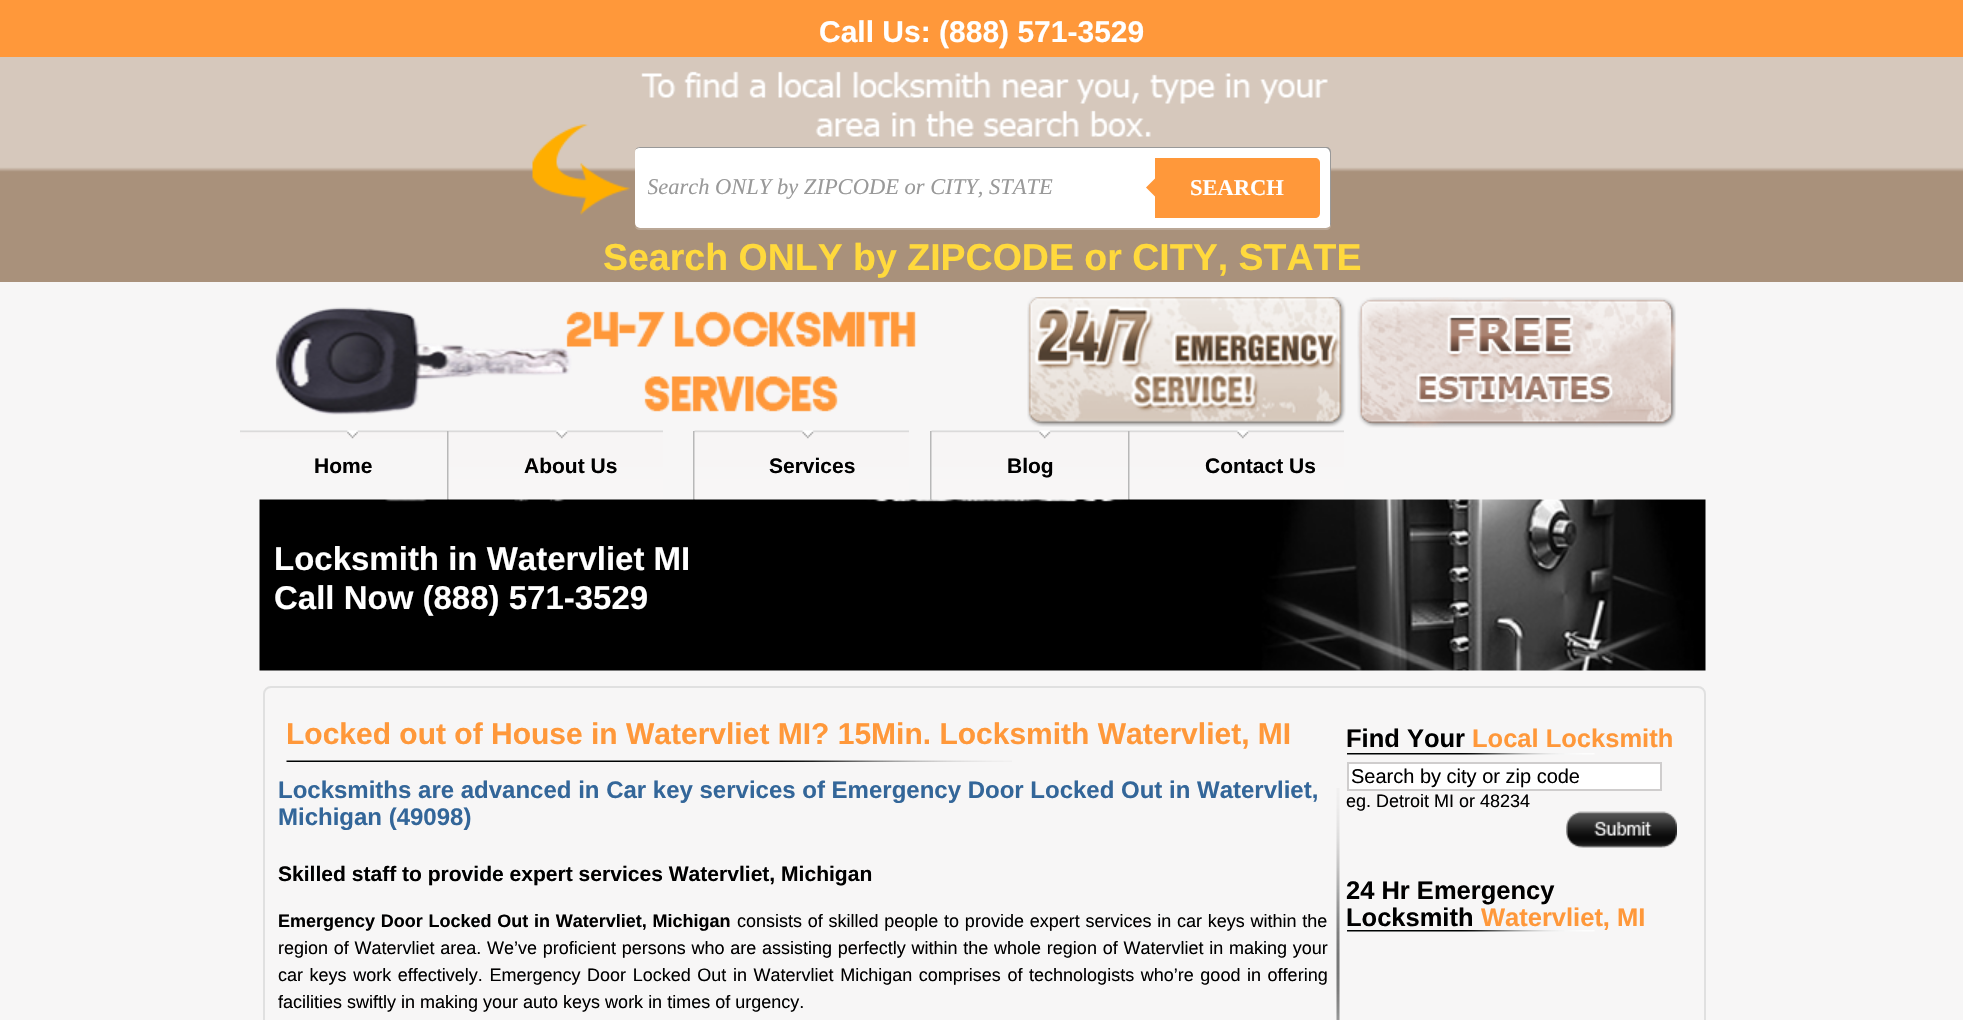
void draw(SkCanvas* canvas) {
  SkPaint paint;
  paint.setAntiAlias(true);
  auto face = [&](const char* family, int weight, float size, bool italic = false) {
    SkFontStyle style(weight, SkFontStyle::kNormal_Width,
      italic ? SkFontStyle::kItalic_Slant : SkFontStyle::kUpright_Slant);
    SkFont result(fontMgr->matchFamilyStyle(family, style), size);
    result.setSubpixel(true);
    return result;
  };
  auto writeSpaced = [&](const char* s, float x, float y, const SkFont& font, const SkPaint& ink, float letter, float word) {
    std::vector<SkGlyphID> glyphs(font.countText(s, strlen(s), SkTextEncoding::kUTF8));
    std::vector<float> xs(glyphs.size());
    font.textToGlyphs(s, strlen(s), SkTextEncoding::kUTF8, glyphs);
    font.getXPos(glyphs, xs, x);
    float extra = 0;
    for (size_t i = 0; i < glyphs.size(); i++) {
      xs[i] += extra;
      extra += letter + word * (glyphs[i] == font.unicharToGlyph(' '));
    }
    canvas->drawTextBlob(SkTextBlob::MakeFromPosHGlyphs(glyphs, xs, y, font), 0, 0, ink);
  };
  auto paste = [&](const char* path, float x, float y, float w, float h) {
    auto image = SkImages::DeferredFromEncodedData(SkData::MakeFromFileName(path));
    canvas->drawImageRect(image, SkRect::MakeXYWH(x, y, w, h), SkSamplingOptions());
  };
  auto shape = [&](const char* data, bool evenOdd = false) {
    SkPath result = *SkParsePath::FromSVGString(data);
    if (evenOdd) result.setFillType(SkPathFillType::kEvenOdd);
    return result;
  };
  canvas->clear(0xfff7f6f6);
  paint.setColor(0xffff983a);
  canvas->drawRect(SkRect::MakeXYWH(0, 0, 1963, 57), paint);
  {
    const SkColor colors[] = {0xffd6c8bc, 0xffd6c8bc, 0xffa9917b, 0xffa9917b};
    const float stops[] = {0, 0.49f, 0.51f, 1};
    const SkPoint ends[] = {{982, 57}, {982, 282}};
    paint.setShader(SkGradientShader::MakeLinear(ends, colors, stops, 4, SkTileMode::kClamp));
    paint.setAlpha(255);
  }
  canvas->drawRect(SkRect::MakeXYWH(0, 57, 1963, 225), paint);
  paste("img/1.png", 532, 71, 796, 144);
  paint.setShader(nullptr);
  paint.setColor(0x33ffffff);
  canvas->drawPath(shape("M635 226C635 228 637 230 640 230H1326C1329 230 1331 228 1331 225V154L1330 152V224C1330 226 1328 228 1326 228H639C637 228 636 227 635 226Z"), paint);
  paint.setColor(0xffffffff);
  canvas->drawRoundRect(SkRect::MakeXYWH(635, 147, 696, 81), 5, 5, paint);
  paint.setColor(0x66000000);
  canvas->drawPath(shape("M639 148H1326C1328 148 1330 151 1330 153V226C1331 225 1331 224 1331 223V152C1331 149 1329 147 1326 147H640C638 147 636 148 635 150C636 149 638 148 639 148Z"), paint);
  paint.setColor(0xffff983a);
  canvas->drawPath(shape("M1155 158H1315C1318 158 1320 160 1320 163V213C1320 216 1318 218 1315 218H1155Z"), paint);
  canvas->drawPath(shape("M1158 175.5V199.5L1146 187.5Z"), paint);
  paste("img/2.png", 275, 307, 641, 108);
  paste("img/3.png", 1027, 297, 319, 130);
  paste("img/4.png", 1357, 297, 319, 131);
  paste("img/5.png", 240, 430, 209, 9);
  paint.setColor(0xffb8b8b8);
  canvas->drawRect(SkRect::MakeXYWH(447, 431, 2, 69), paint);
  paste("img/6.png", 448, 430, 215, 70);
  canvas->drawRect(SkRect::MakeXYWH(693, 431, 2, 69), paint);
  paste("img/7.png", 694, 430, 215, 70);
  canvas->drawRect(SkRect::MakeXYWH(930, 431, 2, 69), paint);
  paste("img/8.png", 931, 430, 199, 70);
  canvas->drawRect(SkRect::MakeXYWH(1128, 431, 2, 69), paint);
  paste("img/9.png", 1129, 430, 215, 70);
  paste("img/10.png", 259, 499, 1447, 172);
  paint.setStroke(true);
  paint.setStrokeWidth(2);
  paint.setColor(0xffe0e0e0);
  canvas->drawRoundRect(SkRect::MakeXYWH(264, 687, 1441, 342), 7, 7, paint);
  paste("img/11.png", 286, 760, 726, 2);
  paste("img/12.png", 1336, 788, 4, 232);
  paste("img/13.png", 1347, 753, 248, 2);
  paint.setStroke(false);
  paint.setColor(0xffffffff);
  canvas->drawRect(SkRect::MakeXYWH(1348, 763, 313, 27), paint);
  paint.setStroke(true);
  paint.setColor(0xffcfcdcd);
  canvas->drawRect(SkRect::MakeXYWH(1348, 763, 313, 27), paint);
  paste("img/14.png", 1566, 811, 111, 37);
  paste("img/13.png", 1347, 930, 248, 2);
  auto f0 = face("Liberation Sans", 700, 30);
  paint.setStroke(false);
  paint.setColor(0xffffffff);
  canvas->drawString("Call Us: (888) 571-3529", 819, 42, f0, paint);
  canvas->save();
  canvas->clipRect(SkRect::MakeXYWH(648, 176, 489, 25));
  auto f1 = face("Liberation Serif", 400, 22.5f, true);
  paint.setColor(0xff999999);
  canvas->drawString("Search ONLY by ZIPCODE or CITY, STATE", 647, 194, f1, paint);
  canvas->restore();
  auto f2 = face("Liberation Serif", 700, 22.5f);
  paint.setColor(0xffffffff);
  canvas->drawString("SEARCH", 1190, 195, f2, paint);
  auto f3 = face("Liberation Sans", 700, 37.5f);
  paint.setColor(0xffffd93d);
  canvas->drawString("Search ONLY by ZIPCODE or CITY, STATE", 603, 270, f3, paint);
  auto f4 = face("Liberation Sans", 700, 21);
  paint.setColor(0xff000000);
  {
    const struct { const char* s; float x, y; } items[] = {
      {"Home", 314, 473},
      {"About Us", 524, 473},
      {"Services", 769, 473},
      {"Blog", 1007, 473},
      {"Contact Us", 1205, 473},
    };
    for (auto [s, x, y] : items) {
      canvas->drawString(s, x, y, f4, paint);
    }
  }
  auto f5 = face("Liberation Sans", 700, 33);
  paint.setColor(0xffffffff);
  canvas->drawString("Locksmith in Watervliet MI", 274, 570, f5, paint);
  canvas->drawString("Call Now (888) 571-3529", 274, 609, f5, paint);
  paint.setColor(0xffff983a);
  canvas->drawString("Locked out of House in Watervliet MI? 15Min. Locksmith Watervliet, MI", 286, 744, f0, paint);
  auto f6 = face("Liberation Sans", 700, 24);
  paint.setColor(0xff336699);
  canvas->drawString("Locksmiths are advanced in Car key services of Emergency Door Locked Out in Watervliet,", 278, 798, f6, paint);
  canvas->drawString("Michigan (49098)", 278, 825, f6, paint);
  auto f7 = face("Liberation Sans", 700, 21.05f);
  paint.setColor(0xff000000);
  canvas->drawString("Skilled staff to provide expert services Watervliet, Michigan", 278, 881, f7, paint);
  auto f8 = face("Liberation Sans", 700, 18);
  writeSpaced("Emergency Door Locked Out in Watervliet, Michigan", 278, 927, f8, paint, 0, 0.75f);
  auto f9 = face("Liberation Sans", 400, 18);
  writeSpaced("consists of skilled people to provide expert services in car keys within the", 737, 927, f9, paint, 0, 0.75f);
  writeSpaced("region of Watervliet area. We’ve proficient persons who are assisting perfectly within the whole region of Watervliet in making your", 278, 954, f9, paint, 0, 0.75f);
  writeSpaced("car keys work effectively. Emergency Door Locked Out in Watervliet Michigan comprises of technologists who’re good in offering", 278, 981, f9, paint, 0, 1.6f);
  canvas->drawString("facilities swiftly in making your auto keys work in times of urgency.", 278, 1008, f9, paint);
  auto f10 = face("Liberation Sans", 700, 25.5f);
  canvas->drawString("Find Your", 1346, 747, f10, paint);
  paint.setColor(0xffff983a);
  canvas->drawString("Local Locksmith", 1472, 747, f10, paint);
  auto f11 = face("Liberation Sans", 400, 20);
  paint.setColor(0xff000000);
  canvas->drawString("Search by city or zip code", 1351, 783, f11, paint);
  canvas->drawString("eg. Detroit MI or 48234", 1346, 807, f9, paint);
  canvas->drawString("24 Hr Emergency", 1346, 899, f10, paint);
  canvas->drawString("Locksmith", 1346, 926, f10, paint);
  paint.setColor(0xffff983a);
  canvas->drawString("Watervliet, MI", 1481, 926, f10, paint);
}
